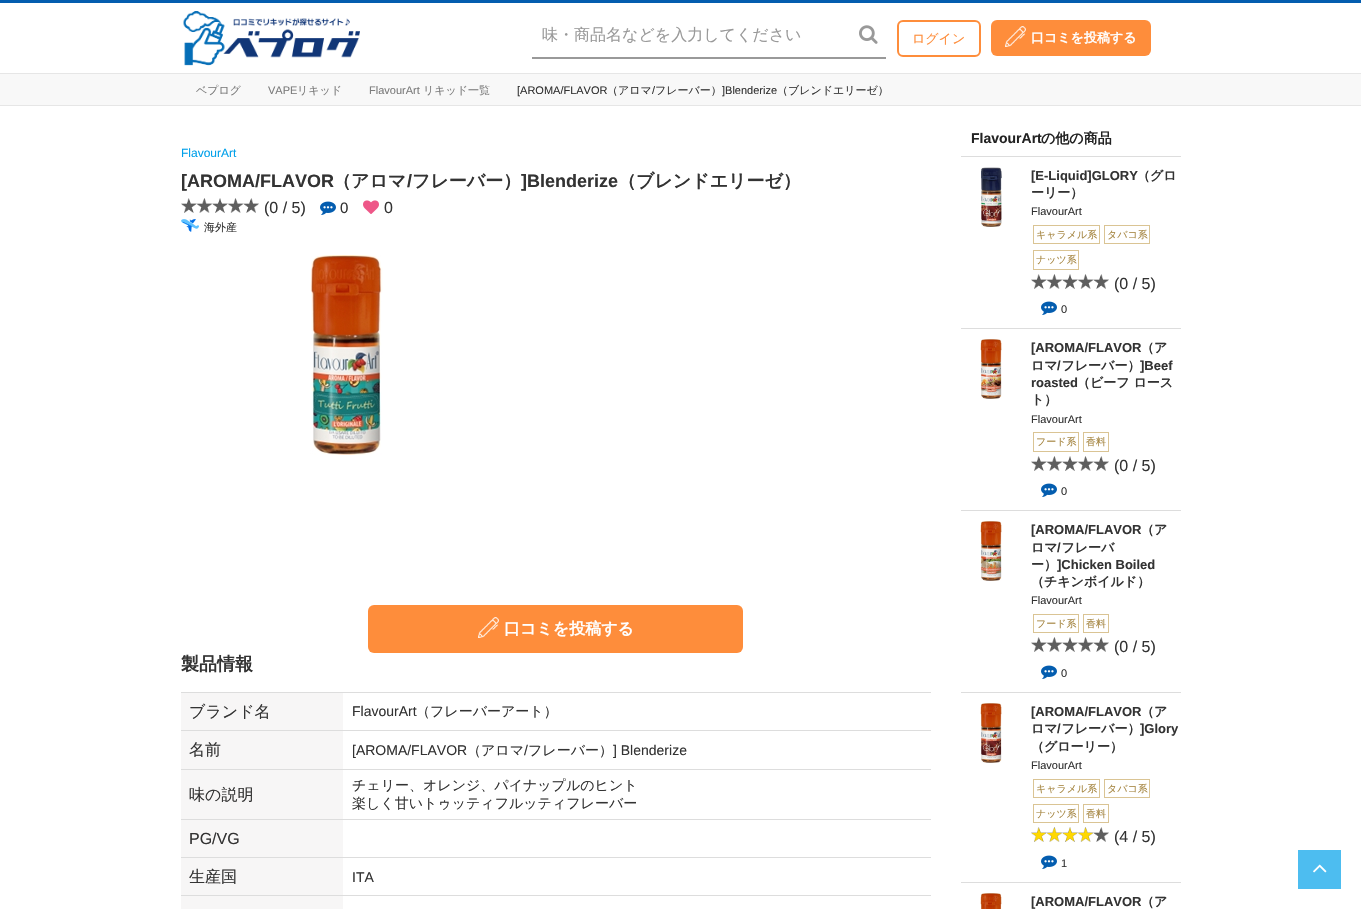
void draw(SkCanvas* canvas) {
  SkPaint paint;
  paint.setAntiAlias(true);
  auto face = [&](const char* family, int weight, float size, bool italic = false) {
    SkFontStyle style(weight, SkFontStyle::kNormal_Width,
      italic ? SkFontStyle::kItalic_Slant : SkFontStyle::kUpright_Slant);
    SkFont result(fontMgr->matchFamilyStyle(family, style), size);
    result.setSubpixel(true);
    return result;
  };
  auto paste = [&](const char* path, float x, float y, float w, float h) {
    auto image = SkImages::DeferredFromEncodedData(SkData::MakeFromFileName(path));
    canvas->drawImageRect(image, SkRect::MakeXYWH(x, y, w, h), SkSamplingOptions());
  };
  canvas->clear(0xffffffff);
  paint.setColor(0xff045daf);
  canvas->drawRect(SkRect::MakeXYWH(0, 0, 1361, 3), paint);
  paint.setColor(0xffe6e6e6);
  canvas->drawRect(SkRect::MakeXYWH(0, 73, 1361, 1), paint);
  paste("img/1.png", 183, 11, 177, 55);
  paint.setColor(0xff999999);
  canvas->drawRect(SkRect::MakeXYWH(532, 57, 354, 2), paint);
  paste("img/2.png", 859, 25, 19, 19);
  paint.setStroke(true);
  paint.setStrokeWidth(2);
  paint.setColor(0xfffe8d3b);
  canvas->drawRoundRect(SkRect::MakeXYWH(898, 21, 82, 35), 5, 5, paint);
  paint.setStroke(false);
  canvas->drawRoundRect(SkRect::MakeXYWH(991, 20, 160, 36), 6, 6, paint);
  paste("img/3.png", 1005, 26, 21, 21);
  paint.setColor(0xfff8f8f8);
  canvas->drawRect(SkRect::MakeXYWH(0, 74, 1361, 31), paint);
  paint.setColor(0xffe6e6e6);
  canvas->drawRect(SkRect::MakeXYWH(0, 105, 1361, 1), paint);
  paste("img/4.png", 181, 198, 78, 15);
  paste("img/5.png", 320, 201, 16, 14);
  paste("img/6.png", 363, 200, 16, 14);
  paste("img/7.png", 181, 219, 18, 13);
  paste("img/8.png", 310, 255, 73, 200);
  paint.setColor(0xfffe8d3b);
  canvas->drawRoundRect(SkRect::MakeXYWH(368, 605, 375, 48), 6, 6, paint);
  paste("img/3.png", 478, 617, 21, 21);
  {
    const struct { float x, y, w, h; SkColor color; } items[] = {
      {181, 692, 750, 1, 0xffdddddd},
      {181, 730, 750, 1, 0xffdddddd},
      {181, 693, 162, 37, 0xfff7f6f6},
      {181, 769, 750, 1, 0xffdddddd},
      {181, 731, 162, 38, 0xfff7f6f6},
      {181, 819, 750, 1, 0xffdddddd},
      {181, 770, 162, 49, 0xfff7f6f6},
      {181, 857, 750, 1, 0xffdddddd},
      {181, 820, 162, 37, 0xfff7f6f6},
      {181, 895, 750, 1, 0xffdddddd},
      {181, 858, 162, 37, 0xfff7f6f6},
      {181, 896, 162, 13, 0xfff7f6f6},
      {961, 156, 220, 1, 0xffdddddd},
      {961, 328, 220, 1, 0xffdddddd},
    };
    for (auto [x, y, w, h, color] : items) {
      paint.setColor(color);
      canvas->drawRect(SkRect::MakeXYWH(x, y, w, h), paint);
    }
  }
  paste("img/9.png", 981, 167, 21, 60);
  paint.setStroke(true);
  paint.setStrokeWidth(1);
  paint.setColor(0xffdac494);
  canvas->drawRect(SkRect::MakeXYWH(1033.5f, 225.5f, 66, 18), paint);
  canvas->drawRect(SkRect::MakeXYWH(1104.5f, 225.5f, 45, 18), paint);
  canvas->drawRect(SkRect::MakeXYWH(1033.5f, 250.5f, 45, 19), paint);
  paste("img/10.png", 1031, 274, 78, 15);
  paste("img/5.png", 1041, 301, 16, 14);
  paint.setStroke(false);
  paint.setColor(0xffdddddd);
  canvas->drawRect(SkRect::MakeXYWH(961, 510, 220, 1), paint);
  paste("img/11.png", 980, 339, 22, 60);
  paint.setStroke(true);
  paint.setColor(0xffdac494);
  canvas->drawRect(SkRect::MakeXYWH(1033.5f, 432.5f, 45, 19), paint);
  canvas->drawRect(SkRect::MakeXYWH(1083.5f, 432.5f, 25, 19), paint);
  paste("img/10.png", 1031, 456, 78, 15);
  paste("img/5.png", 1041, 483, 16, 14);
  paint.setStroke(false);
  paint.setColor(0xffdddddd);
  canvas->drawRect(SkRect::MakeXYWH(961, 692, 220, 1), paint);
  paste("img/12.png", 980, 521, 22, 60);
  paint.setStroke(true);
  paint.setColor(0xffdac494);
  canvas->drawRect(SkRect::MakeXYWH(1033.5f, 614.5f, 45, 18), paint);
  canvas->drawRect(SkRect::MakeXYWH(1083.5f, 614.5f, 25, 18), paint);
  paste("img/10.png", 1031, 637, 78, 15);
  paste("img/5.png", 1041, 665, 16, 14);
  paint.setStroke(false);
  paint.setColor(0xffdddddd);
  canvas->drawRect(SkRect::MakeXYWH(961, 882, 220, 1), paint);
  paste("img/13.png", 980, 703, 22, 60);
  paint.setStroke(true);
  paint.setColor(0xffdac494);
  canvas->drawRect(SkRect::MakeXYWH(1033.5f, 779.5f, 66, 18), paint);
  canvas->drawRect(SkRect::MakeXYWH(1104.5f, 779.5f, 45, 18), paint);
  canvas->drawRect(SkRect::MakeXYWH(1033.5f, 804.5f, 45, 18), paint);
  canvas->drawRect(SkRect::MakeXYWH(1083.5f, 804.5f, 25, 18), paint);
  paste("img/14.png", 1031, 827, 78, 15);
  paste("img/5.png", 1041, 855, 16, 14);
  paste("img/15.png", 980, 893, 22, 16);
  paint.setStroke(false);
  paint.setColor(0xff4dbdf0);
  canvas->drawRect(SkRect::MakeXYWH(1298, 850, 43, 39), paint);
  paste("img/16.png", 1313, 864, 14, 9);
  auto f0 = face("WenQuanYi Zen Hei", 500, 16);
  paint.setColor(0xff999999);
  canvas->drawString("味・商品名などを入力してください", 542, 40, f0, paint);
  auto f1 = face("WenQuanYi Zen Hei", 500, 13);
  paint.setColor(0xfffe8d3b);
  canvas->drawString("ログイン", 912, 43, f1, paint);
  auto f2 = face("WenQuanYi Zen Hei", 700, 13);
  paint.setColor(0xffffffff);
  canvas->drawString("口コミを投稿する", 1031, 42, f2, paint);
  auto f3 = face("WenQuanYi Zen Hei", 500, 11);
  paint.setColor(0xff7c7c7c);
  canvas->drawString("ベプログ", 196, 94, f3, paint);
  auto f4 = face("Liberation Sans", 400, 11);
  canvas->drawString("VAPE", 268, 94, f4, paint);
  canvas->drawString("リキッド", 297, 94, f3, paint);
  canvas->drawString("FlavourArt", 369, 94, f4, paint);
  canvas->drawString("リキッド一覧", 423, 94, f3, paint);
  paint.setColor(0xff333333);
  canvas->drawString("[AROMA/FLAVOR", 517, 94, f4, paint);
  canvas->drawString("（アロマ フレーバー）", 607, 94, f3, paint);
  canvas->drawString("（ブレンドエリーゼ）", 777, 94, f3, paint);
  canvas->drawString("/", 652, 94, f4, paint);
  canvas->drawString("]Blenderize", 722, 94, f4, paint);
  auto f5 = face("Liberation Sans", 400, 12);
  paint.setColor(0xff00a0ea);
  canvas->drawString("FlavourArt", 181, 157, f5, paint);
  auto f6 = face("Liberation Sans", 700, 18);
  paint.setColor(0xff333333);
  canvas->drawString("[AROMA/FLAVOR", 181, 187, f6, paint);
  auto f7 = face("WenQuanYi Zen Hei", 700, 18);
  canvas->drawString("（アロマ", 333, 187, f7, paint);
  canvas->drawString("/", 407, 187, f6, paint);
  canvas->drawString("フレーバー）", 412, 187, f7, paint);
  canvas->drawString("]Blenderize", 521, 187, f6, paint);
  canvas->drawString("（ブレンドエリーゼ）", 618, 187, f7, paint);
  auto f8 = face("Liberation Sans", 400, 16);
  canvas->drawString("(0 / 5)", 264, 213, f8, paint);
  auto f9 = face("Liberation Sans", 400, 15);
  canvas->drawString("0", 340, 213, f9, paint);
  canvas->drawString("0", 384, 213, f8, paint);
  canvas->drawString("海外産", 204, 231, f3, paint);
  auto f10 = face("WenQuanYi Zen Hei", 700, 16);
  paint.setColor(0xffffffff);
  canvas->drawString("口コミを投稿する", 504, 634, f10, paint);
  paint.setColor(0xff333333);
  canvas->drawString("製品情報", 181, 670, f7, paint);
  canvas->drawString("ブランド名", 189, 717, f0, paint);
  auto f11 = face("Liberation Sans", 400, 14);
  canvas->drawString("FlavourArt", 352, 716, f11, paint);
  auto f12 = face("WenQuanYi Zen Hei", 500, 14);
  canvas->drawString("（フレーバーアート）", 416, 716, f12, paint);
  canvas->drawString("名前", 189, 755, f0, paint);
  canvas->drawString("[AROMA/FLAVOR", 352, 755, f11, paint);
  canvas->drawString("（アロマ", 467, 755, f12, paint);
  canvas->drawString("/", 524, 755, f11, paint);
  canvas->drawString("フレーバー）", 528, 755, f12, paint);
  canvas->drawString("] Blenderize", 613, 755, f11, paint);
  canvas->drawString("味の説明", 189, 800, f0, paint);
  canvas->drawString("チェリー、オレンジ、パイナップルのヒント", 352, 790, f12, paint);
  canvas->drawString("楽しく甘いトゥッティフルッティフレーバー", 352, 808, f12, paint);
  canvas->drawString("PG/VG", 189, 844, f8, paint);
  canvas->drawString("生産国", 189, 882, f0, paint);
  canvas->drawString("ITA", 352, 882, f11, paint);
  auto f13 = face("Liberation Sans", 700, 14);
  paint.setColor(0xff222222);
  canvas->drawString("FlavourArt", 971, 143, f13, paint);
  auto f14 = face("WenQuanYi Zen Hei", 700, 14);
  canvas->drawString("の他の商品", 1041, 143, f14, paint);
  auto f15 = face("Liberation Sans", 700, 13);
  paint.setColor(0xff333333);
  canvas->drawString("[E-Liquid]GLORY", 1031, 180, f15, paint);
  canvas->drawString("（グロ", 1137, 180, f2, paint);
  canvas->drawString("ーリー）", 1031, 197, f2, paint);
  canvas->drawString("FlavourArt", 1031, 215, f4, paint);
  auto f16 = face("WenQuanYi Zen Hei", 500, 10);
  paint.setColor(0xffa58540);
  {
    const struct { const char* s; float x, y; } items[] = {
      {"キャラメル系", 1036, 238},
      {"タバコ系", 1107, 238},
      {"ナッツ系", 1036, 263},
    };
    for (auto [s, x, y] : items) {
      canvas->drawString(s, x, y, f16, paint);
    }
  }
  paint.setColor(0xff333333);
  canvas->drawString("(0 / 5)", 1114, 289, f8, paint);
  canvas->drawString("0", 1061, 313, f4, paint);
  canvas->drawString("[AROMA/FLAVOR", 1031, 352, f15, paint);
  canvas->drawString("（ア", 1141, 352, f2, paint);
  canvas->drawString("ロマ フレーバー）", 1031, 370, f2, paint);
  {
    const struct { const char* s; float x, y; } items[] = {
      {"/", 1057, 370},
      {"]Beef", 1140, 370},
      {"roasted", 1031, 387},
    };
    for (auto [s, x, y] : items) {
      canvas->drawString(s, x, y, f15, paint);
    }
  }
  canvas->drawString("（ビーフ ロース", 1077, 387, f2, paint);
  canvas->drawString("ト）", 1031, 404, f2, paint);
  canvas->drawString("FlavourArt", 1031, 423, f4, paint);
  paint.setColor(0xffa58540);
  canvas->drawString("フード系", 1036, 445, f16, paint);
  canvas->drawString("香料", 1086, 445, f16, paint);
  paint.setColor(0xff333333);
  canvas->drawString("(0 / 5)", 1114, 471, f8, paint);
  canvas->drawString("0", 1061, 495, f4, paint);
  canvas->drawString("[AROMA/FLAVOR", 1031, 534, f15, paint);
  canvas->drawString("（ア", 1141, 534, f2, paint);
  canvas->drawString("ロマ フレーバ", 1031, 552, f2, paint);
  canvas->drawString("/", 1057, 552, f15, paint);
  canvas->drawString("ー）", 1031, 569, f2, paint);
  canvas->drawString("]Chicken Boiled", 1057, 569, f15, paint);
  canvas->drawString("（チキンボイルド）", 1031, 586, f2, paint);
  canvas->drawString("FlavourArt", 1031, 604, f4, paint);
  paint.setColor(0xffa58540);
  canvas->drawString("フード系", 1036, 627, f16, paint);
  canvas->drawString("香料", 1086, 627, f16, paint);
  paint.setColor(0xff333333);
  canvas->drawString("(0 / 5)", 1114, 652, f8, paint);
  canvas->drawString("0", 1061, 677, f4, paint);
  canvas->drawString("[AROMA/FLAVOR", 1031, 716, f15, paint);
  canvas->drawString("（ア", 1141, 716, f2, paint);
  canvas->drawString("ロマ フレーバー）", 1031, 733, f2, paint);
  canvas->drawString("/", 1057, 733, f15, paint);
  canvas->drawString("]Glory", 1140, 733, f15, paint);
  canvas->drawString("（グローリー）", 1031, 751, f2, paint);
  canvas->drawString("FlavourArt", 1031, 769, f4, paint);
  paint.setColor(0xffa58540);
  {
    const struct { const char* s; float x, y; } items[] = {
      {"キャラメル系", 1036, 792},
      {"タバコ系", 1107, 792},
      {"ナッツ系", 1036, 817},
      {"香料", 1086, 817},
    };
    for (auto [s, x, y] : items) {
      canvas->drawString(s, x, y, f16, paint);
    }
  }
  paint.setColor(0xff333333);
  canvas->drawString("(4 / 5)", 1114, 842, f8, paint);
  canvas->drawString("1", 1061, 867, f4, paint);
  canvas->drawString("[AROMA/FLAVOR", 1031, 906, f15, paint);
  canvas->drawString("（ア", 1141, 906, f2, paint);
}
